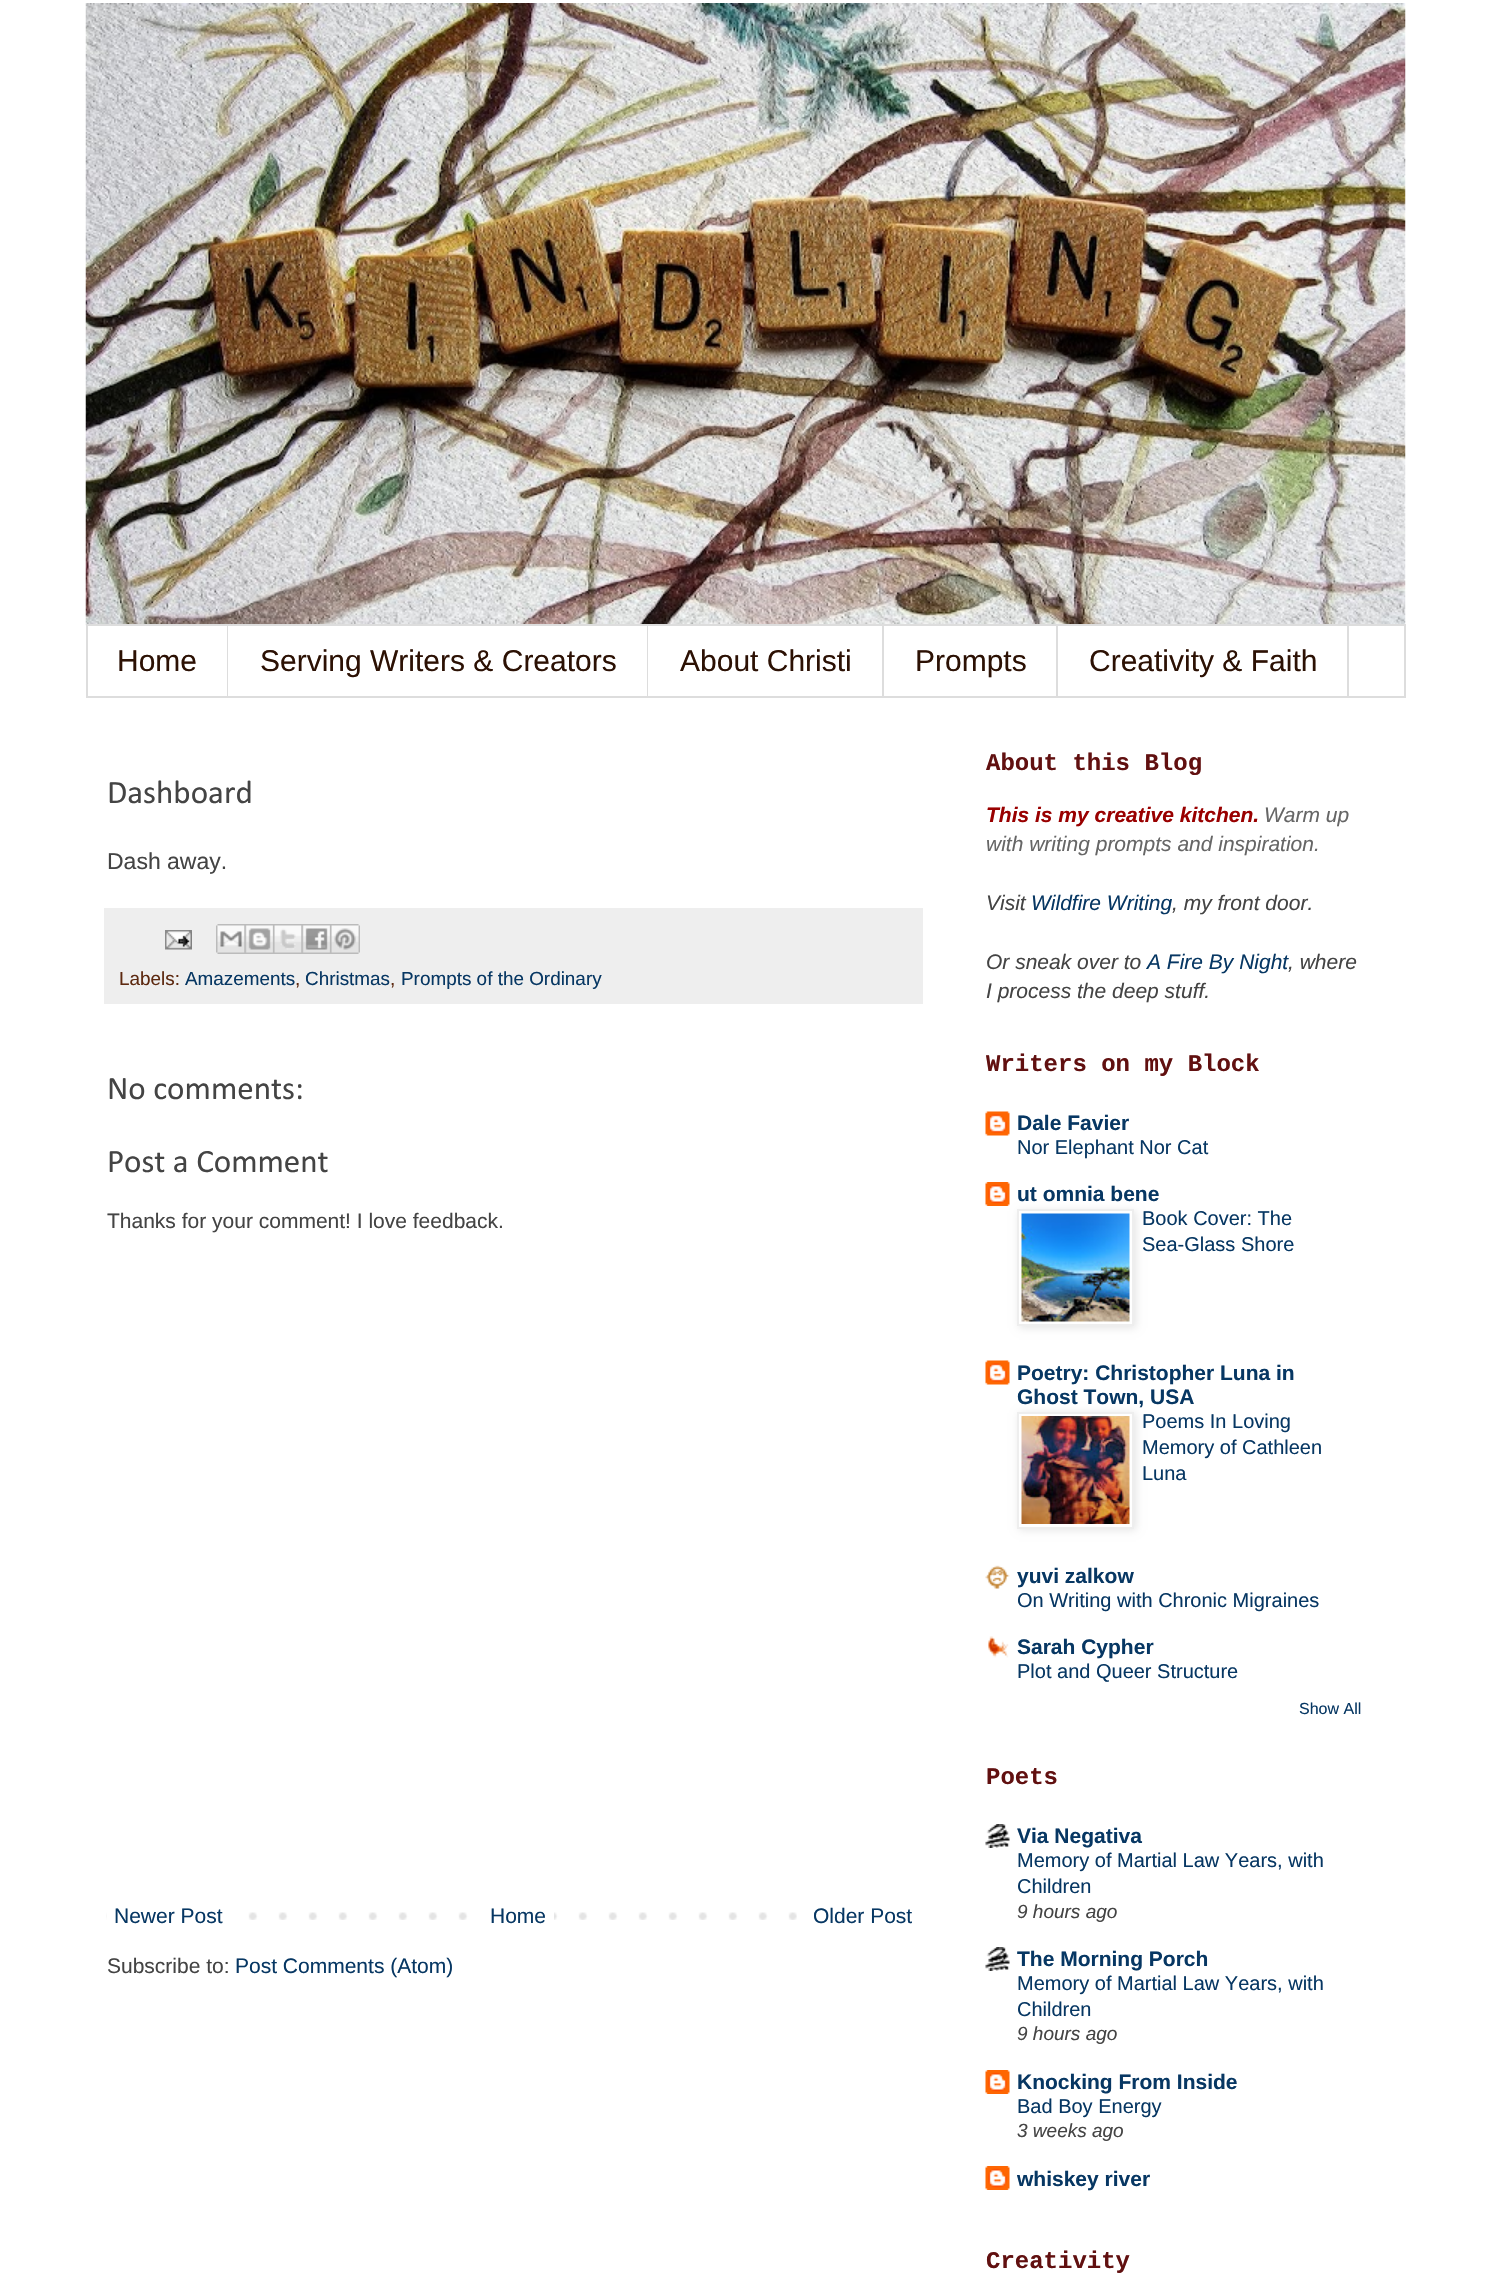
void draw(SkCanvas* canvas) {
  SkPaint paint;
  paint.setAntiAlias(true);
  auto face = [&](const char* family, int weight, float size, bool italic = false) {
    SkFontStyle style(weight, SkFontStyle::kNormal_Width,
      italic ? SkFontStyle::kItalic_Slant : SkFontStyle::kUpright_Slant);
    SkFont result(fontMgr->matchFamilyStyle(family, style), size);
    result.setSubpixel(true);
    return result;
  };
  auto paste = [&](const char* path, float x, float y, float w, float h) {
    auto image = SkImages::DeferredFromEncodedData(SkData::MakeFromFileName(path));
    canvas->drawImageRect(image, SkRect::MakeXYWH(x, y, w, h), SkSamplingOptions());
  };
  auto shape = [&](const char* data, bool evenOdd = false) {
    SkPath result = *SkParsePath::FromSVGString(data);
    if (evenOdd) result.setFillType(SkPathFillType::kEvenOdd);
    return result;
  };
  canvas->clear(0xffffffff);
  paste("img/1.png", 85, 3, 1321, 623);
  paint.setStroke(true);
  paint.setStrokeWidth(2);
  paint.setColor(0xffdddddd);
  canvas->drawRect(SkRect::MakeXYWH(87, 625, 1318, 72), paint);
  paint.setStroke(false);
  {
    const struct { float x, y, w, h; SkColor color; } items[] = {
      {227, 626, 1, 70, 0xffdddddd},
      {647, 626, 1, 70, 0xffdddddd},
      {882, 626, 2, 70, 0xffdddddd},
      {1056, 626, 2, 70, 0xffdddddd},
      {1347, 626, 2, 70, 0xffdddddd},
      {104, 908, 819, 96, 0xffeeeeee},
    };
    for (auto [x, y, w, h, color] : items) {
      paint.setColor(color);
      canvas->drawRect(SkRect::MakeXYWH(x, y, w, h), paint);
    }
  }
  paste("img/2.png", 165, 930, 27, 20);
  paste("img/3.png", 216, 924, 29, 30);
  paste("img/4.png", 244, 924, 29, 30);
  paste("img/5.png", 273, 924, 29, 30);
  paste("img/6.png", 301, 924, 29, 30);
  paste("img/7.png", 330, 924, 30, 30);
  paste("img/8.png", 106, 1912, 691, 8);
  paint.setColor(0xffffffff);
  canvas->drawRect(SkRect::MakeXYWH(107, 1912, 121, 8), paint);
  canvas->drawRect(SkRect::MakeXYWH(488, 1912, 66, 8), paint);
  paste("img/9.png", 985, 1111, 25, 25);
  paste("img/10.png", 985, 1182, 25, 24);
  canvas->save();
  canvas->clipPath(shape("M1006 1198H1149V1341H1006ZM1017 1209H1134V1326H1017Z", true), true);
  paint.setColor(0x1a000000);
  paint.setMaskFilter(SkMaskFilter::MakeBlur(kNormal_SkBlurStyle, 4));
  canvas->drawRect(SkRect::MakeXYWH(1019, 1211, 117, 117), paint);
  paint.setMaskFilter(nullptr);
  canvas->restore();
  paint.setStroke(true);
  paint.setColor(0xffeeeeee);
  canvas->drawRect(SkRect::MakeXYWH(1018, 1210, 115, 115), paint);
  paste("img/11.png", 1021, 1213, 109, 109);
  paste("img/9.png", 985, 1360, 25, 25);
  paint.setStroke(false);
  paint.setColor(0x1a000000);
  paint.setMaskFilter(SkMaskFilter::MakeBlur(kNormal_SkBlurStyle, 4));
  canvas->drawRect(SkRect::MakeXYWH(1019, 1413, 117, 117), paint);
  paint.setMaskFilter(nullptr);
  paint.setColor(0xffffffff);
  canvas->drawRect(SkRect::MakeXYWH(1018, 1413, 115, 115), paint);
  paint.setStroke(true);
  paint.setColor(0xffeeeeee);
  canvas->drawRect(SkRect::MakeXYWH(1018, 1413, 115, 115), paint);
  paste("img/12.png", 1021, 1416, 109, 108);
  paste("img/13.png", 985, 1565, 25, 24);
  paste("img/14.png", 988, 1636, 21, 22);
  paste("img/15.png", 985, 1824, 25, 24);
  paste("img/15.png", 985, 1947, 25, 24);
  paste("img/10.png", 985, 2070, 25, 24);
  paste("img/10.png", 985, 2166, 25, 24);
  auto f0 = face("Liberation Sans", 400, 30);
  paint.setStroke(false);
  paint.setColor(0xff2c1104);
  {
    const struct { const char* s; float x, y; } items[] = {
      {"Home", 117, 671},
      {"Serving Writers & Creators", 260, 671},
      {"About Christi", 680, 671},
      {"Prompts", 915, 671},
      {"Creativity & Faith", 1089, 671},
    };
    for (auto [s, x, y] : items) {
      canvas->drawString(s, x, y, f0, paint);
    }
  }
  auto f1 = face("Calibri", 400, 33);
  paint.setColor(0xff444444);
  canvas->drawString("Dashboard", 107, 803, f1, paint);
  auto f2 = face("Liberation Sans", 400, 23);
  canvas->drawString("Dash away.", 107, 869, f2, paint);
  auto f3 = face("Liberation Sans", 400, 18.9f);
  paint.setColor(0xff5d2910);
  canvas->drawString("Labels:", 119, 985, f3, paint);
  paint.setColor(0xff073763);
  canvas->drawString("Amazements", 185, 985, f3, paint);
  paint.setColor(0xff5d2910);
  canvas->drawString(",", 295, 985, f3, paint);
  paint.setColor(0xff073763);
  canvas->drawString("Christmas", 305, 985, f3, paint);
  paint.setColor(0xff5d2910);
  canvas->drawString(",", 390, 985, f3, paint);
  paint.setColor(0xff073763);
  canvas->drawString("Prompts of the Ordinary", 401, 985, f3, paint);
  paint.setColor(0xff444444);
  canvas->drawString("No comments:", 107, 1099, f1, paint);
  canvas->drawString("Post a Comment", 107, 1172, f1, paint);
  auto f4 = face("Liberation Sans", 400, 21);
  canvas->drawString("Thanks for your comment! I love feedback.", 107, 1228, f4, paint);
  paint.setColor(0xff073763);
  {
    const struct { const char* s; float x, y; } items[] = {
      {"Newer Post", 114, 1923},
      {"Home", 490, 1923},
      {"Older Post", 813, 1923},
    };
    for (auto [s, x, y] : items) {
      canvas->drawString(s, x, y, f4, paint);
    }
  }
  paint.setColor(0xff444444);
  canvas->drawString("Subscribe to:", 107, 1973, f4, paint);
  paint.setColor(0xff073763);
  canvas->drawString("Post Comments (Atom)", 235, 1973, f4, paint);
  auto f5 = face("Liberation Mono", 700, 24);
  paint.setColor(0xff611010);
  canvas->drawString("About this Blog", 986, 770, f5, paint);
  auto f6 = face("Liberation Sans", 700, 21, true);
  paint.setColor(0xff990000);
  canvas->drawString("This is my creative kitchen.", 986, 822, f6, paint);
  auto f7 = face("Liberation Sans", 400, 21, true);
  paint.setColor(0xff666666);
  canvas->drawString("Warm up", 1264, 822, f7, paint);
  canvas->drawString("with writing prompts and inspiration.", 986, 851, f7, paint);
  paint.setColor(0xff444444);
  canvas->drawString("Visit", 986, 910, f7, paint);
  paint.setColor(0xff073763);
  canvas->drawString("Wildfire Writing", 1031, 910, f7, paint);
  paint.setColor(0xff444444);
  canvas->drawString(", my front door.", 1172, 910, f7, paint);
  canvas->drawString("Or sneak over to", 986, 969, f7, paint);
  paint.setColor(0xff073763);
  canvas->drawString("A Fire By Night", 1147, 969, f7, paint);
  paint.setColor(0xff444444);
  canvas->drawString(", where", 1288, 969, f7, paint);
  canvas->drawString("I process the deep stuff.", 986, 998, f7, paint);
  paint.setColor(0xff611010);
  canvas->drawString("Writers on my Block", 986, 1071, f5, paint);
  auto f8 = face("Liberation Sans", 700, 21);
  paint.setColor(0xff073763);
  canvas->drawString("Dale Favier", 1017, 1130, f8, paint);
  auto f9 = face("Liberation Sans", 400, 20);
  canvas->drawString("Nor Elephant Nor Cat", 1017, 1154, f9, paint);
  canvas->drawString("ut omnia bene", 1017, 1201, f8, paint);
  canvas->drawString("Book Cover: The", 1142, 1225, f9, paint);
  canvas->drawString("Sea-Glass Shore", 1142, 1251, f9, paint);
  canvas->drawString("Poetry: Christopher Luna in", 1017, 1380, f8, paint);
  canvas->drawString("Ghost Town, USA", 1017, 1404, f8, paint);
  {
    const struct { const char* s; float x, y; } items[] = {
      {"Poems In Loving", 1142, 1428},
      {"Memory of Cathleen", 1142, 1454},
      {"Luna", 1142, 1480},
    };
    for (auto [s, x, y] : items) {
      canvas->drawString(s, x, y, f9, paint);
    }
  }
  canvas->drawString("yuvi zalkow", 1017, 1583, f8, paint);
  canvas->drawString("On Writing with Chronic Migraines", 1017, 1607, f9, paint);
  canvas->drawString("Sarah Cypher", 1017, 1654, f8, paint);
  canvas->drawString("Plot and Queer Structure", 1017, 1678, f9, paint);
  auto f10 = face("Liberation Sans", 400, 16);
  canvas->drawString("Show All", 1299, 1714, f10, paint);
  paint.setColor(0xff611010);
  canvas->drawString("Poets", 986, 1784, f5, paint);
  paint.setColor(0xff073763);
  canvas->drawString("Via Negativa", 1017, 1843, f8, paint);
  canvas->drawString("Memory of Martial Law Years, with", 1017, 1867, f9, paint);
  canvas->drawString("Children", 1017, 1893, f9, paint);
  auto f11 = face("Liberation Sans", 400, 19, true);
  paint.setColor(0xff444444);
  canvas->drawString("9 hours ago", 1017, 1918, f11, paint);
  paint.setColor(0xff073763);
  canvas->drawString("The Morning Porch", 1017, 1966, f8, paint);
  canvas->drawString("Memory of Martial Law Years, with", 1017, 1990, f9, paint);
  canvas->drawString("Children", 1017, 2016, f9, paint);
  paint.setColor(0xff444444);
  canvas->drawString("9 hours ago", 1017, 2040, f11, paint);
  paint.setColor(0xff073763);
  canvas->drawString("Knocking From Inside", 1017, 2089, f8, paint);
  canvas->drawString("Bad Boy Energy", 1017, 2113, f9, paint);
  paint.setColor(0xff444444);
  canvas->drawString("3 weeks ago", 1017, 2137, f11, paint);
  paint.setColor(0xff073763);
  canvas->drawString("whiskey river", 1017, 2186, f8, paint);
  paint.setColor(0xff611010);
  canvas->drawString("Creativity", 986, 2268, f5, paint);
}
